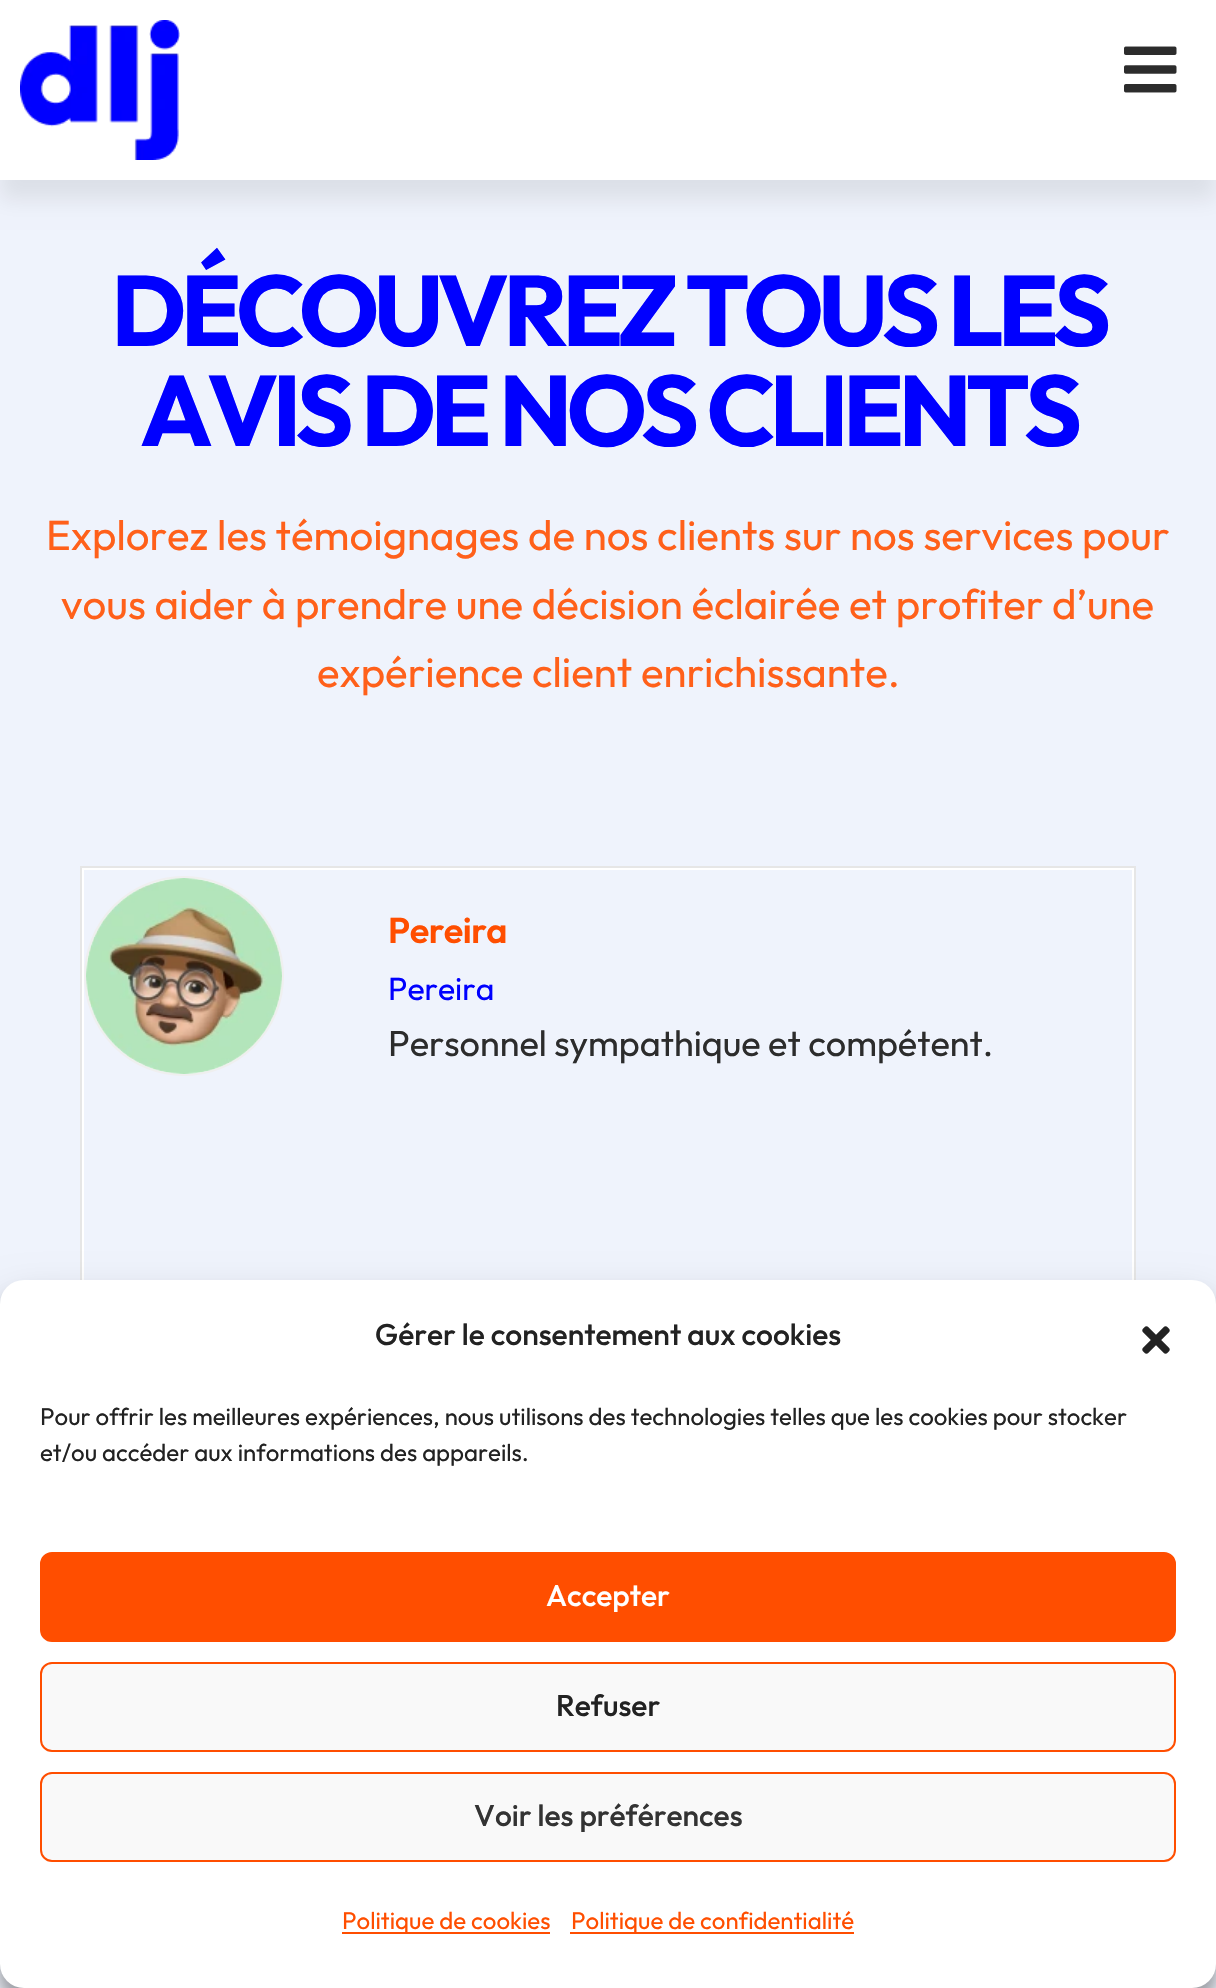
void draw(SkCanvas* canvas) {
  SkPaint paint;
  paint.setAntiAlias(true);
  auto face = [&](const char* family, int weight, float size, bool italic = false) {
    SkFontStyle style(weight, SkFontStyle::kNormal_Width,
      italic ? SkFontStyle::kItalic_Slant : SkFontStyle::kUpright_Slant);
    SkFont result(fontMgr->matchFamilyStyle(family, style), size);
    result.setSubpixel(true);
    return result;
  };
  auto writeSpaced = [&](const char* s, float x, float y, const SkFont& font, const SkPaint& ink, float letter, float word) {
    std::vector<SkGlyphID> glyphs(font.countText(s, strlen(s), SkTextEncoding::kUTF8));
    std::vector<float> xs(glyphs.size());
    font.textToGlyphs(s, strlen(s), SkTextEncoding::kUTF8, glyphs);
    font.getXPos(glyphs, xs, x);
    float extra = 0;
    for (size_t i = 0; i < glyphs.size(); i++) {
      xs[i] += extra;
      extra += letter + word * (glyphs[i] == font.unicharToGlyph(' '));
    }
    canvas->drawTextBlob(SkTextBlob::MakeFromPosHGlyphs(glyphs, xs, y, font), 0, 0, ink);
  };
  auto paste = [&](const char* path, float x, float y, float w, float h) {
    auto image = SkImages::DeferredFromEncodedData(SkData::MakeFromFileName(path));
    canvas->drawImageRect(image, SkRect::MakeXYWH(x, y, w, h), SkSamplingOptions());
  };
  canvas->clear(0xffeff3fc);
  paint.setColor(0x14000000);
  paint.setMaskFilter(SkMaskFilter::MakeBlur(kNormal_SkBlurStyle, 10));
  canvas->drawRect(SkRect::MakeXYWH(0, 20, 1216, 180), paint);
  paint.setMaskFilter(nullptr);
  paint.setColor(0xffffffff);
  canvas->drawRect(SkRect::MakeXYWH(0, 0, 1216, 180), paint);
  paste("img/1.png", 20, 20, 160, 140);
  paste("img/2.png", 1124, 46, 53, 47);
  paint.setStroke(true);
  paint.setStrokeWidth(2);
  paint.setColor(0xffe6e6e6);
  canvas->drawRect(SkRect::MakeXYWH(81, 867, 1054, 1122), paint);
  paint.setColor(0xffffffff);
  canvas->drawRect(SkRect::MakeXYWH(83, 869, 1050, 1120), paint);
  paint.setStroke(false);
  canvas->drawCircle(184, 976, 99, paint);
  paint.setStroke(true);
  paint.setColor(0xffefefef);
  canvas->drawCircle(184, 976, 99, paint);
  paste("img/3.png", 86, 878, 196, 196);
  paint.setStroke(false);
  paint.setColor(0x3b000000);
  paint.setMaskFilter(SkMaskFilter::MakeBlur(kNormal_SkBlurStyle, 6));
  canvas->drawRoundRect(SkRect::MakeXYWH(0, 1292, 1216, 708), 24, 24, paint);
  paint.setMaskFilter(nullptr);
  paint.setColor(0x30000000);
  paint.setMaskFilter(SkMaskFilter::MakeBlur(kNormal_SkBlurStyle, 20));
  canvas->drawRoundRect(SkRect::MakeXYWH(0, 1300, 1216, 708), 24, 24, paint);
  paint.setMaskFilter(nullptr);
  paint.setColor(0xffffffff);
  canvas->drawRoundRect(SkRect::MakeXYWH(0, 1280, 1216, 708), 24, 24, paint);
  paste("img/4.png", 1142, 1326, 28, 28);
  paint.setColor(0xffff4e00);
  canvas->drawRoundRect(SkRect::MakeXYWH(41, 1553, 1134, 88), 11, 11, paint);
  paint.setStroke(true);
  canvas->drawRoundRect(SkRect::MakeXYWH(41, 1553, 1134, 88), 11, 11, paint);
  paint.setStroke(false);
  paint.setColor(0xfff9f9f9);
  canvas->drawRoundRect(SkRect::MakeXYWH(41, 1663, 1134, 88), 11, 11, paint);
  paint.setStroke(true);
  paint.setColor(0xffff4e00);
  canvas->drawRoundRect(SkRect::MakeXYWH(41, 1663, 1134, 88), 11, 11, paint);
  paint.setStroke(false);
  paint.setColor(0xfff9f9f9);
  canvas->drawRoundRect(SkRect::MakeXYWH(41, 1773, 1134, 88), 11, 11, paint);
  paint.setStroke(true);
  paint.setColor(0xffff4e00);
  canvas->drawRoundRect(SkRect::MakeXYWH(41, 1773, 1134, 88), 11, 11, paint);
  paint.setStroke(false);
  canvas->drawRect(SkRect::MakeXYWH(342, 1932, 208, 2), paint);
  canvas->drawRect(SkRect::MakeXYWH(570, 1932, 284, 2), paint);
  auto f0 = face("Outfit", 700, 100);
  paint.setColor(0xff0000ff);
  writeSpaced("DÉCOUVREZ TOUS LES", 111, 346, f0, paint, -6, 0);
  writeSpaced("AVIS DE NOS CLIENTS", 140, 446, f0, paint, -6, 0);
  auto f1 = face("Outfit", 400, 42);
  paint.setColor(0xffff601a);
  {
    const struct { const char* s; float x, y; } items[] = {
      {"Explorez les témoignages de nos clients sur nos services pour", 46, 550},
      {"vous aider à prendre une décision éclairée et profiter d’une", 61, 619},
      {"expérience client enrichissante.", 317, 687},
    };
    for (auto [s, x, y] : items) {
      canvas->drawString(s, x, y, f1, paint);
    }
  }
  auto f2 = face("Outfit", 600, 36);
  paint.setColor(0xffff4e00);
  writeSpaced("Pereira", 388, 943, f2, paint, -0.5f, 0);
  auto f3 = face("Outfit", 400, 32);
  paint.setColor(0xff0000ff);
  canvas->drawString("Pereira", 388, 1000, f3, paint);
  auto f4 = face("Outfit", 400, 36);
  paint.setColor(0xff2c2c2c);
  canvas->drawString("Personnel sympathique et compétent.", 388, 1056, f4, paint);
  auto f5 = face("Outfit", 500, 30);
  paint.setColor(0xff222222);
  canvas->drawString("Gérer le consentement aux cookies", 375, 1345, f5, paint);
  auto f6 = face("Outfit", 400, 24);
  canvas->drawString("Pour offrir les meilleures expériences, nous utilisons des technologies telles que les cookies pour stocker", 40, 1425, f6, paint);
  canvas->drawString("et/ou accéder aux informations des appareils.", 40, 1461, f6, paint);
  paint.setColor(0xffffffff);
  canvas->drawString("Accepter", 546, 1606, f5, paint);
  paint.setColor(0xff222222);
  canvas->drawString("Refuser", 556, 1716, f5, paint);
  paint.setColor(0xff333333);
  canvas->drawString("Voir les préférences", 474, 1826, f5, paint);
  paint.setColor(0xffff4e00);
  canvas->drawString("Politique de cookies", 342, 1929, f6, paint);
  canvas->drawString("Politique de confidentialité", 571, 1929, f6, paint);
}
